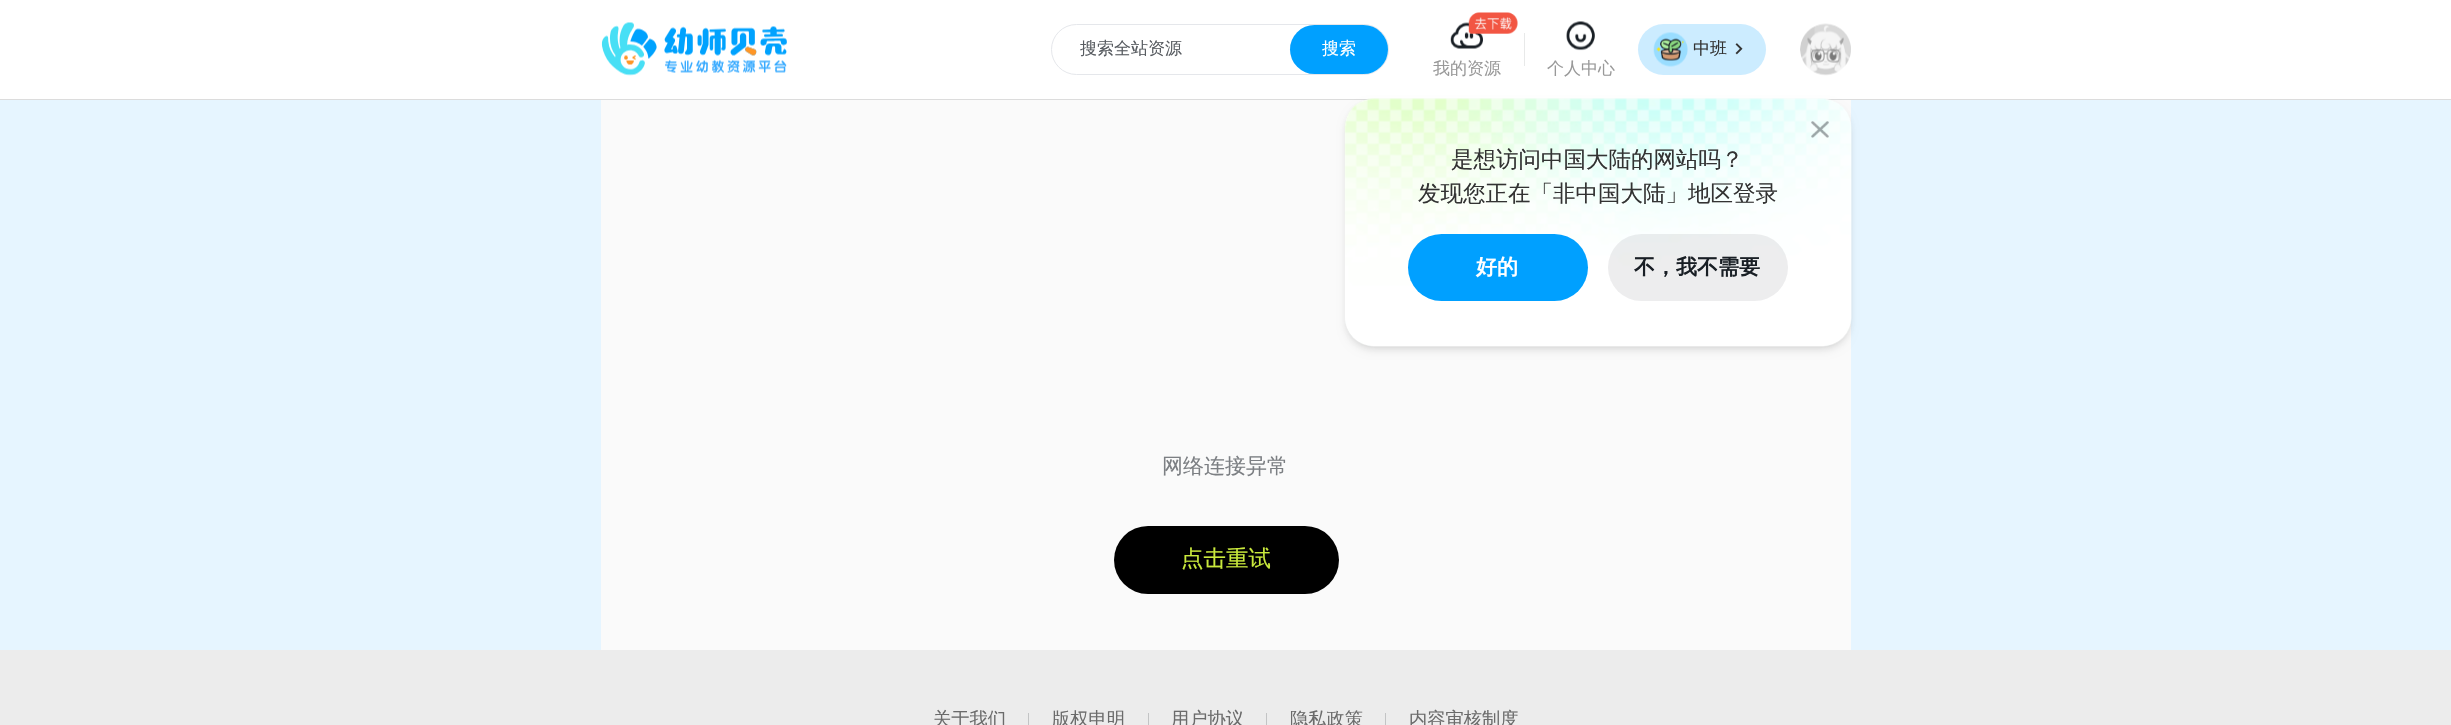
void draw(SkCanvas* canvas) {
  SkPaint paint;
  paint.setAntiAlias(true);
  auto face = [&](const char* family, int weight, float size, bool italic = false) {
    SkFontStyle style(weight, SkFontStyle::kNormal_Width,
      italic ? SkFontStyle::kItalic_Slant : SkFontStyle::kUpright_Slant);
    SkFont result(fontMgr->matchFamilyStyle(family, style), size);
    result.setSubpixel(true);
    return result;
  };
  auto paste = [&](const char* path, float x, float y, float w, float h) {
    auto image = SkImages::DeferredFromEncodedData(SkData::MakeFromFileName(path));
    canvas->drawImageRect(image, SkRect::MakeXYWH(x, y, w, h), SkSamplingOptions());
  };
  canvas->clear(0xffffffff);
  paint.setColor(0xffdcdcdc);
  canvas->drawRect(SkRect::MakeXYWH(0, 99, 2451, 1), paint);
  paste("img/1.png", 601, 22, 186, 54);
  paint.setStroke(true);
  paint.setStrokeWidth(1);
  paint.setColor(0xffe5e7eb);
  canvas->drawRoundRect(SkRect::MakeXYWH(1051.5f, 24.5f, 337, 50), 25, 25, paint);
  paint.setStroke(false);
  paint.setColor(0xff00a0ff);
  canvas->drawRoundRect(SkRect::MakeXYWH(1290, 25, 98, 49), 24.5f, 24.5f, paint);
  paint.setColor(0xffccecff);
  canvas->drawRoundRect(SkRect::MakeXYWH(1638, 24, 128, 51), 25.5f, 25.5f, paint);
  paste("img/2.png", 1653, 32, 35, 35);
  paste("img/3.png", 1735, 43, 8, 12);
  paste("img/4.png", 1800, 23, 51, 53);
  paint.setColor(0xffe8e9e9);
  canvas->drawRect(SkRect::MakeXYWH(1524, 33, 1, 33), paint);
  paste("img/5.png", 1450, 22, 33, 27);
  paste("img/6.png", 1468, 12, 50, 22);
  paste("img/7.png", 1566, 21, 29, 30);
  paint.setColor(0xffe6f5ff);
  canvas->drawRect(SkRect::MakeXYWH(0, 100, 2451, 550), paint);
  paint.setColor(0xfffafafa);
  canvas->drawRect(SkRect::MakeXYWH(601, 100, 1250, 550), paint);
  paint.setColor(0x1a000000);
  paint.setMaskFilter(SkMaskFilter::MakeBlur(kNormal_SkBlurStyle, 2.5f));
  canvas->drawRoundRect(SkRect::MakeXYWH(1348, 104, 501, 242), 26, 26, paint);
  paint.setMaskFilter(nullptr);
  paint.setMaskFilter(SkMaskFilter::MakeBlur(kNormal_SkBlurStyle, 4));
  canvas->drawRoundRect(SkRect::MakeXYWH(1346, 105, 504, 245), 28, 28, paint);
  paint.setMaskFilter(nullptr);
  paint.setColor(0xffffffff);
  canvas->drawRoundRect(SkRect::MakeXYWH(1345, 99, 506, 247), 29, 29, paint);
  paste("img/8.png", 1344, 98, 508, 249);
  paste("img/9.png", 1811, 121, 18, 17);
  paint.setColor(0xff00a0ff);
  canvas->drawRoundRect(SkRect::MakeXYWH(1408, 234, 180, 67), 33.5f, 33.5f, paint);
  paint.setColor(0x14191f25);
  canvas->drawRoundRect(SkRect::MakeXYWH(1608, 234, 180, 67), 33.5f, 33.5f, paint);
  paint.setColor(0xff000000);
  canvas->drawRoundRect(SkRect::MakeXYWH(1114, 526, 225, 68), 34, 34, paint);
  {
    const struct { float x, y, w, h; SkColor color; } items[] = {
      {0, 650, 2451, 75, 0xffececec},
      {1028, 713, 1, 12, 0xffc3c4c5},
      {1148, 713, 1, 12, 0xffc3c4c5},
      {1266, 713, 1, 12, 0xffc3c4c5},
      {1385, 713, 1, 12, 0xffc3c4c5},
    };
    for (auto [x, y, w, h, color] : items) {
      paint.setColor(color);
      canvas->drawRect(SkRect::MakeXYWH(x, y, w, h), paint);
    }
  }
  auto f0 = face("WenQuanYi Zen Hei", 500, 17);
  paint.setColor(0xff585c61);
  canvas->drawString("搜索全站资源", 1080, 54, f0, paint);
  paint.setColor(0xffffffff);
  canvas->drawString("搜索", 1322, 54, f0, paint);
  paint.setColor(0xff333333);
  canvas->drawString("中班", 1693, 54, f0, paint);
  paint.setColor(0xff999999);
  canvas->drawString("我的资源", 1433, 74, f0, paint);
  canvas->drawString("个人中心", 1547, 74, f0, paint);
  auto f1 = face("WenQuanYi Zen Hei", 500, 22.5f);
  paint.setColor(0xff333333);
  canvas->drawString("是想访问中国大陆的网站吗？", 1451, 167, f1, paint);
  canvas->drawString("发现您正在「非中国大陆」地区登录", 1418, 201, f1, paint);
  auto f2 = face("WenQuanYi Zen Hei", 700, 21);
  paint.setColor(0xffffffff);
  canvas->drawString("好的", 1476, 274, f2, paint);
  paint.setColor(0xff191f25);
  canvas->drawString("不，我不需要", 1634, 274, f2, paint);
  auto f3 = face("WenQuanYi Zen Hei", 500, 21);
  paint.setColor(0xff7c7f83);
  canvas->drawString("网络连接异常", 1162, 473, f3, paint);
  paint.setColor(0xffcaea3c);
  canvas->drawString("点击重试", 1181, 566, f1, paint);
  auto f4 = face("WenQuanYi Zen Hei", 500, 18.25f);
  paint.setColor(0xff6b6b6b);
  {
    const struct { const char* s; float x, y; } items[] = {
      {"关于我们", 933, 725},
      {"版权申明", 1052, 725},
      {"用户协议", 1171, 725},
      {"隐私政策", 1290, 725},
      {"内容审核制度", 1409, 725},
    };
    for (auto [s, x, y] : items) {
      canvas->drawString(s, x, y, f4, paint);
    }
  }
}
